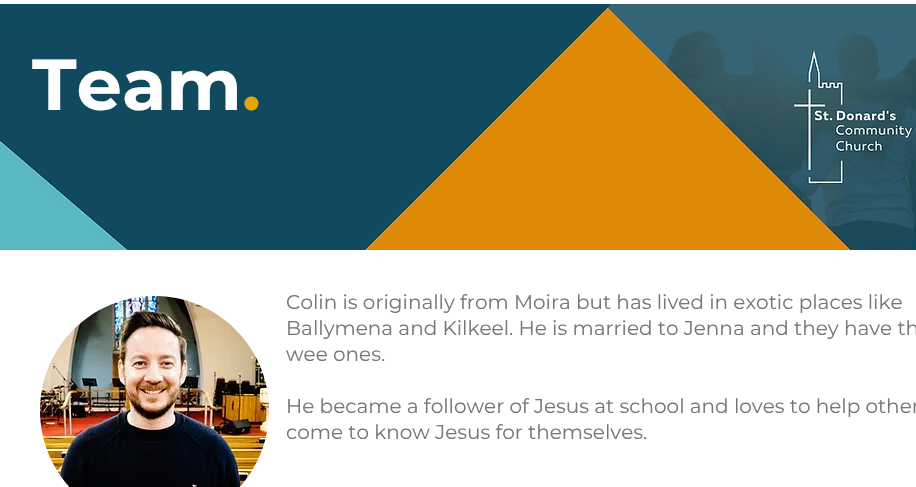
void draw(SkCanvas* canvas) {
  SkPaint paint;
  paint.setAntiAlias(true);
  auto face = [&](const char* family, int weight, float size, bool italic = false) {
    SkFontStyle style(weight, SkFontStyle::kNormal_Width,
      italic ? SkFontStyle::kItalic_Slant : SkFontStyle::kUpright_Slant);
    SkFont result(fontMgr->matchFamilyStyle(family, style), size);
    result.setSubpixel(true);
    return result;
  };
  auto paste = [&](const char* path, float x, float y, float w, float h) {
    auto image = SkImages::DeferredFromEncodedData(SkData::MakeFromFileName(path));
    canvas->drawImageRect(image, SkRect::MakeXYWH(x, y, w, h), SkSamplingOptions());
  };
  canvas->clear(0xffffffff);
  paste("img/1.png", 0, 4, 916, 246);
  paste("img/2.png", 40, 296, 229, 191);
  auto f0 = face("Montserrat", 700, 72);
  paint.setColor(0xffffffff);
  canvas->drawString("Team", 32, 110, f0, paint);
  paint.setColor(0xffe3a60b);
  canvas->drawString(".", 242, 110, f0, paint);
  auto f1 = face("Montserrat", 400, 20);
  paint.setColor(0xff767676);
  {
    const struct { const char* s; float x, y; } items[] = {
      {"Colin is originally from Moira but has lived in exotic places like", 286, 309},
      {"Ballymena and Kilkeel. He is married to Jenna and they have th", 286, 335},
      {"wee ones.", 286, 361},
      {"He became a follower of Jesus at school and loves to help other", 286, 413},
      {"come to know Jesus for themselves.", 286, 439},
    };
    for (auto [s, x, y] : items) {
      canvas->drawString(s, x, y, f1, paint);
    }
  }
}
